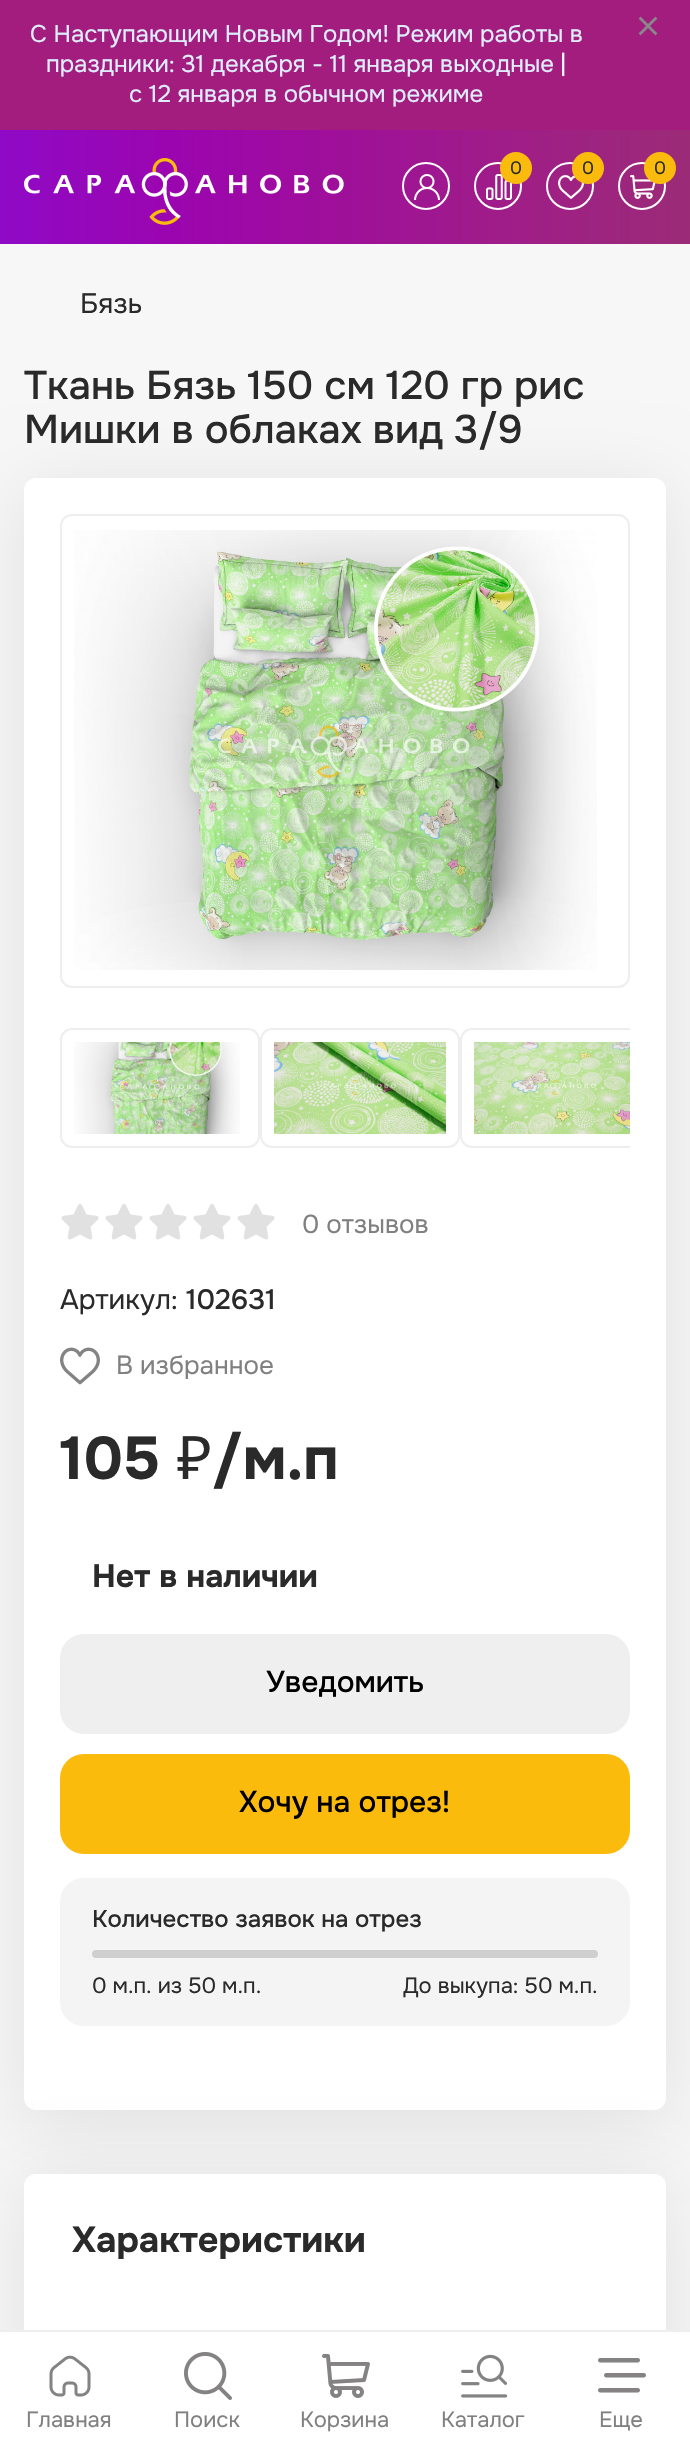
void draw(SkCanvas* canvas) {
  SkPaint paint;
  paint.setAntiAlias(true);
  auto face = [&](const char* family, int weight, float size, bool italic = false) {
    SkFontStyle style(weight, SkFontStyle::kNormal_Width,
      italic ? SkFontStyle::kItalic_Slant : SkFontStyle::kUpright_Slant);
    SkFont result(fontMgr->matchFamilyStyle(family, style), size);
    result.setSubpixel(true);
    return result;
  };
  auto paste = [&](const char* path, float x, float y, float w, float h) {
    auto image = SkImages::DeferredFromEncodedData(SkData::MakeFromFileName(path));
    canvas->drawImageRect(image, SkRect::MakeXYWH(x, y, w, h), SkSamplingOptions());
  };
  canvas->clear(0xfff8f7f8);
  paint.setColor(0xffa31d7f);
  canvas->drawRect(SkRect::MakeXYWH(0, 0, 690, 130), paint);
  paste("img/1.png", 638, 16, 20, 20);
  {
    const SkColor colors[] = {0xff8f0ac6, 0xff9b05af, 0xff9f1099, 0xff9f1e87, 0xff9b2b77};
    const float stops[] = {0, 0.25f, 0.5f, 0.75f, 1};
    const SkPoint ends[] = {{0, 187}, {690, 187}};
    paint.setShader(SkGradientShader::MakeLinear(ends, colors, stops, 5, SkTileMode::kClamp));
    paint.setAlpha(255);
  }
  canvas->drawRect(SkRect::MakeXYWH(0, 130, 690, 114), paint);
  paste("img/2.png", 24, 158, 320, 67);
  paint.setStroke(true);
  paint.setStrokeWidth(2);
  paint.setShader(nullptr);
  paint.setColor(0xffffffff);
  canvas->drawCircle(426, 186, 23, paint);
  paste("img/3.png", 414, 174, 26, 26);
  canvas->drawCircle(498, 186, 23, paint);
  paste("img/4.png", 486, 174, 26, 26);
  paint.setStroke(false);
  paint.setColor(0xfffbbb0d);
  canvas->drawCircle(516, 168, 16, paint);
  paint.setStroke(true);
  paint.setColor(0xffffffff);
  canvas->drawCircle(570, 186, 23, paint);
  paste("img/5.png", 558, 175, 26, 24);
  paint.setStroke(false);
  paint.setColor(0xfffbbb0d);
  canvas->drawCircle(588, 168, 16, paint);
  paint.setStroke(true);
  paint.setColor(0xffffffff);
  canvas->drawCircle(642, 186, 23, paint);
  paste("img/6.png", 630, 175, 26, 24);
  paint.setStroke(false);
  paint.setColor(0xfffbbb0d);
  canvas->drawCircle(660, 168, 16, paint);
  paint.setColor(0x17000000);
  paint.setMaskFilter(SkMaskFilter::MakeBlur(kNormal_SkBlurStyle, 38));
  canvas->drawRoundRect(SkRect::MakeXYWH(24, 490, 642, 1632), 12, 12, paint);
  paint.setMaskFilter(nullptr);
  paint.setColor(0xffffffff);
  canvas->drawRoundRect(SkRect::MakeXYWH(24, 478, 642, 1632), 12, 12, paint);
  paint.setStroke(true);
  paint.setColor(0xffeeeeee);
  canvas->drawRoundRect(SkRect::MakeXYWH(61, 515, 568, 472), 11, 11, paint);
  paste("img/7.png", 74, 530, 523, 440);
  canvas->drawRoundRect(SkRect::MakeXYWH(61, 1029, 198, 118), 11, 11, paint);
  paste("img/8.png", 74, 1042, 166, 92);
  canvas->drawRoundRect(SkRect::MakeXYWH(261, 1029, 198, 118), 11, 11, paint);
  paste("img/9.png", 274, 1042, 172, 92);
  canvas->save();
  canvas->clipRect(SkRect::MakeXYWH(60, 1028, 570, 134));
  canvas->drawRoundRect(SkRect::MakeXYWH(461, 1029, 198, 118), 11, 11, paint);
  canvas->restore();
  paste("img/10.png", 474, 1042, 156, 92);
  paste("img/11.png", 61, 1204, 38, 36);
  paste("img/11.png", 105, 1204, 38, 36);
  paste("img/11.png", 149, 1204, 38, 36);
  paste("img/11.png", 193, 1204, 38, 36);
  paste("img/11.png", 237, 1204, 38, 36);
  paste("img/12.png", 60, 1347, 40, 38);
  paint.setStroke(false);
  paint.setColor(0xffefefef);
  canvas->drawRoundRect(SkRect::MakeXYWH(60, 1634, 570, 100), 24, 24, paint);
  paint.setColor(0xfffbbb0d);
  canvas->drawRoundRect(SkRect::MakeXYWH(60, 1754, 570, 100), 24, 24, paint);
  paint.setColor(0xfff4f4f4);
  canvas->drawRoundRect(SkRect::MakeXYWH(60, 1878, 570, 148), 24, 24, paint);
  paint.setColor(0xffcfcfcf);
  canvas->drawRoundRect(SkRect::MakeXYWH(92, 1950, 506, 8), 4, 4, paint);
  paint.setColor(0x17000000);
  paint.setMaskFilter(SkMaskFilter::MakeBlur(kNormal_SkBlurStyle, 38));
  canvas->drawRoundRect(SkRect::MakeXYWH(24, 2186, 642, 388), 12, 12, paint);
  paint.setMaskFilter(nullptr);
  paint.setColor(0xffffffff);
  canvas->drawRoundRect(SkRect::MakeXYWH(24, 2174, 642, 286), 12, 12, paint);
  canvas->drawRect(SkRect::MakeXYWH(0, 2332, 690, 116), paint);
  paint.setColor(0xffeeeeee);
  canvas->drawRect(SkRect::MakeXYWH(0, 2330, 690, 2), paint);
  paste("img/13.png", 49, 2355, 42, 42);
  paste("img/14.png", 184, 2352, 48, 48);
  paste("img/15.png", 322, 2354, 48, 44);
  paste("img/16.png", 461, 2354, 47, 44);
  paste("img/17.png", 598, 2358, 48, 35);
  auto f0 = face("Onest", 400, 24);
  paint.setColor(0xffdeeeff);
  canvas->drawString("С Наступающим Новым Годом! Режим работы в", 30, 42, f0, paint);
  canvas->drawString("праздники: 31 декабря - 11 января выходные", 46, 72, f0, paint);
  paint.setColor(0xffffffff);
  canvas->drawString("|", 560, 72, f0, paint);
  paint.setColor(0xffdeeeff);
  canvas->drawString("с 12 января в обычном режиме", 129, 102, f0, paint);
  auto f1 = face("Onest", 400, 18);
  paint.setColor(0xff2a2a2a);
  {
    const struct { const char* s; float x, y; } items[] = {
      {"0", 510, 174},
      {"0", 582, 174},
      {"0", 654, 174},
    };
    for (auto [s, x, y] : items) {
      canvas->drawString(s, x, y, f1, paint);
    }
  }
  auto f2 = face("Onest", 400, 28);
  canvas->drawString("Бязь", 80, 313, f2, paint);
  auto f3 = face("Onest", 500, 40);
  canvas->drawString("Ткань Бязь 150 см 120 гр рис", 24, 399, f3, paint);
  canvas->drawString("Мишки в облаках вид 3/9", 24, 443, f3, paint);
  auto f4 = face("Onest", 400, 26);
  paint.setColor(0xff808080);
  canvas->drawString("0 отзывов", 302, 1233, f4, paint);
  paint.setColor(0xff2a2a2a);
  canvas->drawString("Артикул:", 60, 1309, f2, paint);
  auto f5 = face("Onest", 500, 28);
  canvas->drawString("102631", 186, 1309, f5, paint);
  paint.setColor(0xff808080);
  canvas->drawString("В избранное", 116, 1374, f4, paint);
  auto f6 = face("Onest", 700, 60);
  paint.setColor(0xff2a2a2a);
  canvas->drawString("105", 60, 1479, f6, paint);
  auto f7 = face("Noto Sans", 400, 60);
  canvas->drawString("₽", 177, 1479, f7, paint);
  canvas->drawString("/м.п", 212, 1479, f6, paint);
  auto f8 = face("Onest", 700, 32);
  canvas->drawString("Нет в наличии", 92, 1587, f8, paint);
  auto f9 = face("Onest", 500, 30);
  paint.setColor(0xff000000);
  canvas->drawString("Уведомить", 266, 1692, f9, paint);
  canvas->drawString("Хочу на отрез!", 239, 1812, f9, paint);
  auto f10 = face("Onest", 500, 24);
  paint.setColor(0xff2a2a2a);
  canvas->drawString("Количество заявок на отрез", 92, 1927, f10, paint);
  auto f11 = face("Onest", 400, 22);
  canvas->drawString("0 м.п. из 50 м.п.", 92, 1993, f11, paint);
  canvas->drawString("До выкупа: 50 м.п.", 403, 1993, f11, paint);
  auto f12 = face("Onest", 700, 36);
  canvas->drawString("Характеристики", 72, 2252, f12, paint);
  paint.setColor(0xff808080);
  {
    const struct { const char* s; float x, y; } items[] = {
      {"Главная", 26, 2427},
      {"Поиск", 174, 2427},
      {"Корзина", 300, 2427},
      {"Каталог", 441, 2427},
      {"Еще", 599, 2427},
    };
    for (auto [s, x, y] : items) {
      canvas->drawString(s, x, y, f11, paint);
    }
  }
}
